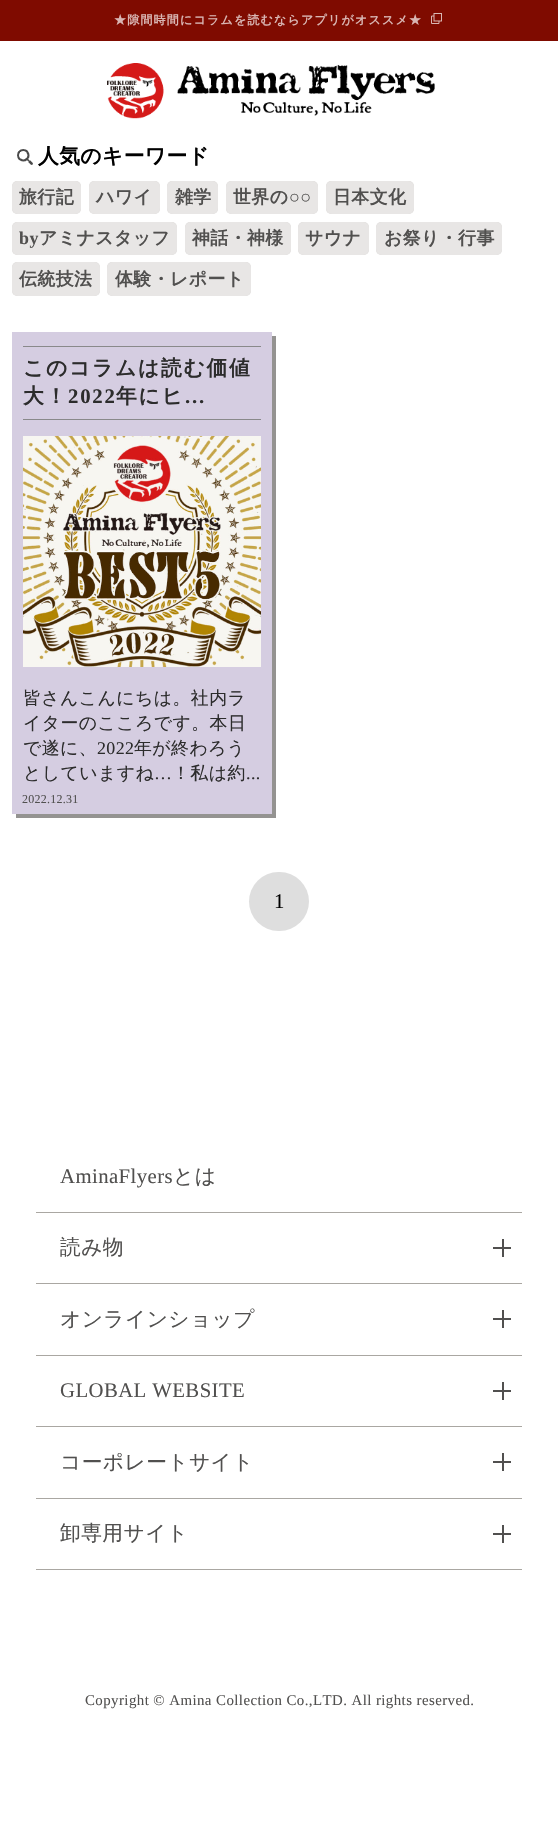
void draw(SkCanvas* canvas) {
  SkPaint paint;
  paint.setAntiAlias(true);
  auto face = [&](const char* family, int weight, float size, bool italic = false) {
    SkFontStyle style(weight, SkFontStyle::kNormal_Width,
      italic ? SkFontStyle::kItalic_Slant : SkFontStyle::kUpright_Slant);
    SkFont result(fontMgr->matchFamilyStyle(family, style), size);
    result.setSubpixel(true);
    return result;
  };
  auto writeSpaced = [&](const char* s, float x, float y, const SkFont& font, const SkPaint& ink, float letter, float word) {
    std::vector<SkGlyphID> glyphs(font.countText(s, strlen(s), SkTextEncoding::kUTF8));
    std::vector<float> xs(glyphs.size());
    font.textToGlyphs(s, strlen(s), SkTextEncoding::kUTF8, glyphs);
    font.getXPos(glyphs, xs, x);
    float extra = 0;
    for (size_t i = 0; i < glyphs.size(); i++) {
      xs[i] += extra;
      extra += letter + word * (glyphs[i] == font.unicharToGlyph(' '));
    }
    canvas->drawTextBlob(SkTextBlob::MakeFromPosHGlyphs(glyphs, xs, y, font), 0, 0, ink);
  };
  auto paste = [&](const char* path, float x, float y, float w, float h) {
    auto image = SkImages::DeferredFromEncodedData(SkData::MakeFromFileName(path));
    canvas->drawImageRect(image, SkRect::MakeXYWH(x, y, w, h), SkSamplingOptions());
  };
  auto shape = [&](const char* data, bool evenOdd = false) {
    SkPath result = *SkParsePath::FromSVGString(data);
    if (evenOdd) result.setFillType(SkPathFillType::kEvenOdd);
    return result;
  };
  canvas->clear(0xffffffff);
  paint.setColor(0xff7f0b00);
  canvas->drawRect(SkRect::MakeXYWH(0, 0, 558, 41), paint);
  paste("img/1.png", 431, 13, 11, 11);
  paste("img/2.png", 17, 149, 16, 16);
  paint.setColor(0xffe0dedc);
  canvas->drawRoundRect(SkRect::MakeXYWH(12, 181, 69, 33), 5, 5, paint);
  paint.setColor(0xffe8e6e5);
  canvas->drawRoundRect(SkRect::MakeXYWH(12, 181, 69, 33), 6, 6, paint);
  paint.setColor(0xffe0dedc);
  canvas->drawRoundRect(SkRect::MakeXYWH(89, 181, 71, 33), 5, 5, paint);
  paint.setColor(0xffe8e6e5);
  canvas->drawRoundRect(SkRect::MakeXYWH(89, 181, 71, 33), 6, 6, paint);
  paint.setColor(0xffe0dedc);
  canvas->drawRoundRect(SkRect::MakeXYWH(167, 181, 51, 33), 5, 5, paint);
  paint.setColor(0xffe8e6e5);
  canvas->drawRoundRect(SkRect::MakeXYWH(167, 181, 51, 33), 6, 6, paint);
  paint.setColor(0xffe0dedc);
  canvas->drawRoundRect(SkRect::MakeXYWH(226, 181, 92, 33), 5, 5, paint);
  paint.setColor(0xffe8e6e5);
  canvas->drawRoundRect(SkRect::MakeXYWH(226, 181, 92, 33), 6, 6, paint);
  paint.setColor(0xffe0dedc);
  canvas->drawRoundRect(SkRect::MakeXYWH(326, 181, 88, 33), 5, 5, paint);
  paint.setColor(0xffe8e6e5);
  canvas->drawRoundRect(SkRect::MakeXYWH(326, 181, 88, 33), 6, 6, paint);
  paint.setColor(0xffe0dedc);
  canvas->drawRoundRect(SkRect::MakeXYWH(12, 222, 165, 33), 5, 5, paint);
  paint.setColor(0xffe8e6e5);
  canvas->drawRoundRect(SkRect::MakeXYWH(12, 222, 165, 33), 6, 6, paint);
  paint.setColor(0xffe0dedc);
  canvas->drawRoundRect(SkRect::MakeXYWH(185, 222, 106, 33), 5, 5, paint);
  paint.setColor(0xffe8e6e5);
  canvas->drawRoundRect(SkRect::MakeXYWH(185, 222, 106, 33), 6, 6, paint);
  paint.setColor(0xffe0dedc);
  canvas->drawRoundRect(SkRect::MakeXYWH(298, 222, 71, 33), 5, 5, paint);
  paint.setColor(0xffe8e6e5);
  canvas->drawRoundRect(SkRect::MakeXYWH(298, 222, 71, 33), 6, 6, paint);
  paint.setColor(0xffe0dedc);
  canvas->drawRoundRect(SkRect::MakeXYWH(376, 222, 126, 33), 5, 5, paint);
  paint.setColor(0xffe8e6e5);
  canvas->drawRoundRect(SkRect::MakeXYWH(376, 222, 126, 33), 6, 6, paint);
  paint.setColor(0xffe0dedc);
  canvas->drawRoundRect(SkRect::MakeXYWH(12, 262, 88, 34), 5, 5, paint);
  paint.setColor(0xffe8e6e5);
  canvas->drawRoundRect(SkRect::MakeXYWH(12, 262, 88, 34), 6, 6, paint);
  paint.setColor(0xffe0dedc);
  canvas->drawRoundRect(SkRect::MakeXYWH(107, 262, 144, 34), 5, 5, paint);
  paint.setColor(0xffe8e6e5);
  canvas->drawRoundRect(SkRect::MakeXYWH(107, 262, 144, 34), 6, 6, paint);
  paint.setColor(0xff949391);
  canvas->drawPath(shape("M16 814V818H276V336H272V814Z"), paint);
  {
    const struct { float x, y, w, h; SkColor color; } items[] = {
      {12, 332, 260, 482, 0xffd5cde1},
      {23, 346, 238, 1, 0xff89898a},
      {23, 419, 238, 1, 0xff89898a},
    };
    for (auto [x, y, w, h, color] : items) {
      paint.setColor(color);
      canvas->drawRect(SkRect::MakeXYWH(x, y, w, h), paint);
    }
  }
  paste("img/3.png", 23, 436, 238, 231);
  paint.setColor(0xffdedede);
  canvas->drawRoundRect(SkRect::MakeXYWH(249, 872, 60, 59), 29.5f, 29.5f, paint);
  paste("img/4.png", 107, 63, 328, 56);
  {
    const struct { float x, y, w, h; SkColor color; } items[] = {
      {36, 1212, 486, 1, 0xffaaa7a2},
      {36, 1283, 486, 1, 0xffaaa7a2},
      {493, 1247, 18, 2, 0xff51504f},
      {502, 1239, 2, 18, 0xff51504f},
      {36, 1355, 486, 1, 0xffaaa7a2},
      {493, 1318, 18, 2, 0xff51504f},
      {502, 1310, 2, 18, 0xff51504f},
      {36, 1426, 486, 1, 0xffaaa7a2},
      {493, 1390, 18, 2, 0xff51504f},
      {502, 1382, 2, 18, 0xff51504f},
      {36, 1498, 486, 1, 0xffaaa7a2},
      {493, 1461, 18, 2, 0xff51504f},
      {502, 1453, 2, 18, 0xff51504f},
      {36, 1569, 486, 1, 0xffaaa7a2},
      {493, 1533, 18, 2, 0xff51504f},
      {502, 1525, 2, 18, 0xff51504f},
    };
    for (auto [x, y, w, h, color] : items) {
      paint.setColor(color);
      canvas->drawRect(SkRect::MakeXYWH(x, y, w, h), paint);
    }
  }
  auto f0 = face("WenQuanYi Zen Hei", 700, 12);
  paint.setColor(0xffd9b6b3);
  writeSpaced("★隙間時間にコラムを読むならアプリがオススメ★", 114, 24, f0, paint, 1.2f, 0);
  auto f1 = face("WenQuanYi Zen Hei", 700, 20.75f);
  paint.setColor(0xff000000);
  writeSpaced("人気のキーワード", 38, 163, f1, paint, 0.42f, 0);
  auto f2 = face("WenQuanYi Zen Hei", 700, 17.9f);
  paint.setColor(0xff51504f);
  {
    const struct { const char* s; float x, y; } items[] = {
      {"旅行記", 19, 203},
      {"ハワイ", 96, 203},
      {"雑学", 175, 203},
      {"世界の", 233, 203},
    };
    for (auto [s, x, y] : items) {
      writeSpaced(s, x, y, f2, paint, 0.42f, 0);
    }
  }
  auto f3 = face("Liberation Serif", 700, 17.9f);
  writeSpaced("○○", 289, 203, f3, paint, 0.42f, 0);
  writeSpaced("日本文化", 333, 203, f2, paint, 0.42f, 0);
  writeSpaced("by", 19, 244, f3, paint, 0.42f, 0);
  {
    const struct { const char* s; float x, y; } items[] = {
      {"アミナスタッフ", 39, 244},
      {"神話・神様", 192, 244},
      {"サウナ", 305, 244},
      {"お祭り・行事", 384, 244},
      {"伝統技法", 19, 285},
      {"体験・レポート", 115, 285},
    };
    for (auto [s, x, y] : items) {
      writeSpaced(s, x, y, f2, paint, 0.42f, 0);
    }
  }
  paint.setColor(0xff2c2c2c);
  writeSpaced("このコラムは読む価値", 23, 375, f1, paint, 1.75f, 0);
  writeSpaced("大！", 23, 403, f1, paint, 1.75f, 0);
  auto f4 = face("Liberation Serif", 700, 20.75f);
  writeSpaced("2022", 68, 403, f4, paint, 1.75f, 0);
  writeSpaced("年にヒ", 116, 403, f1, paint, 1.75f, 0);
  writeSpaced("...", 185, 403, f4, paint, 1.75f, 0);
  auto f5 = face("WenQuanYi Zen Hei", 500, 17.9f);
  {
    const struct { const char* s; float x, y; } items[] = {
      {"皆さんこんにちは。社内ラ", 23, 704},
      {"イターのこころです。本日", 23, 729},
      {"で遂に、", 23, 754},
    };
    for (auto [s, x, y] : items) {
      writeSpaced(s, x, y, f5, paint, 0.42f, 0);
    }
  }
  auto f6 = face("Liberation Serif", 400, 17.9f);
  writeSpaced("2022", 97, 754, f6, paint, 0.42f, 0);
  writeSpaced("年が終わろう", 134, 754, f5, paint, 0.42f, 0);
  writeSpaced("としていますね", 23, 779, f5, paint, 0.42f, 0);
  writeSpaced("…", 154, 779, f6, paint, 0.42f, 0);
  writeSpaced("！私は約", 172, 779, f5, paint, 0.42f, 0);
  writeSpaced("...", 246, 779, f6, paint, 0.42f, 0);
  auto f7 = face("Liberation Serif", 400, 12);
  paint.setColor(0xff51504f);
  writeSpaced("2022.12.31", 22, 803, f7, paint, 0.25f, 0);
  auto f8 = face("Liberation Serif", 400, 20.75f);
  paint.setColor(0xff000000);
  writeSpaced("1", 274, 908, f8, paint, 0.42f, 0);
  paint.setColor(0xff51504f);
  writeSpaced("AminaFlyers", 60, 1183, f8, paint, 0.42f, 0);
  auto f9 = face("WenQuanYi Zen Hei", 500, 20.75f);
  {
    const struct { const char* s; float x, y; } items[] = {
      {"とは", 173, 1183},
      {"読み物", 60, 1254},
      {"オンラインショップ", 60, 1326},
    };
    for (auto [s, x, y] : items) {
      writeSpaced(s, x, y, f9, paint, 0.42f, 0);
    }
  }
  writeSpaced("GLOBAL WEBSITE", 60, 1397, f8, paint, 0.42f, 0);
  writeSpaced("コーポレートサイト", 60, 1469, f9, paint, 0.42f, 0);
  writeSpaced("卸専用サイト", 60, 1540, f9, paint, 0.42f, 0);
  auto f10 = face("Liberation Serif", 400, 14.9f);
  writeSpaced("Copyright © Amina Collection Co.,LTD. All rights reserved.", 85, 1705, f10, paint, 0.42f, 0);
}
